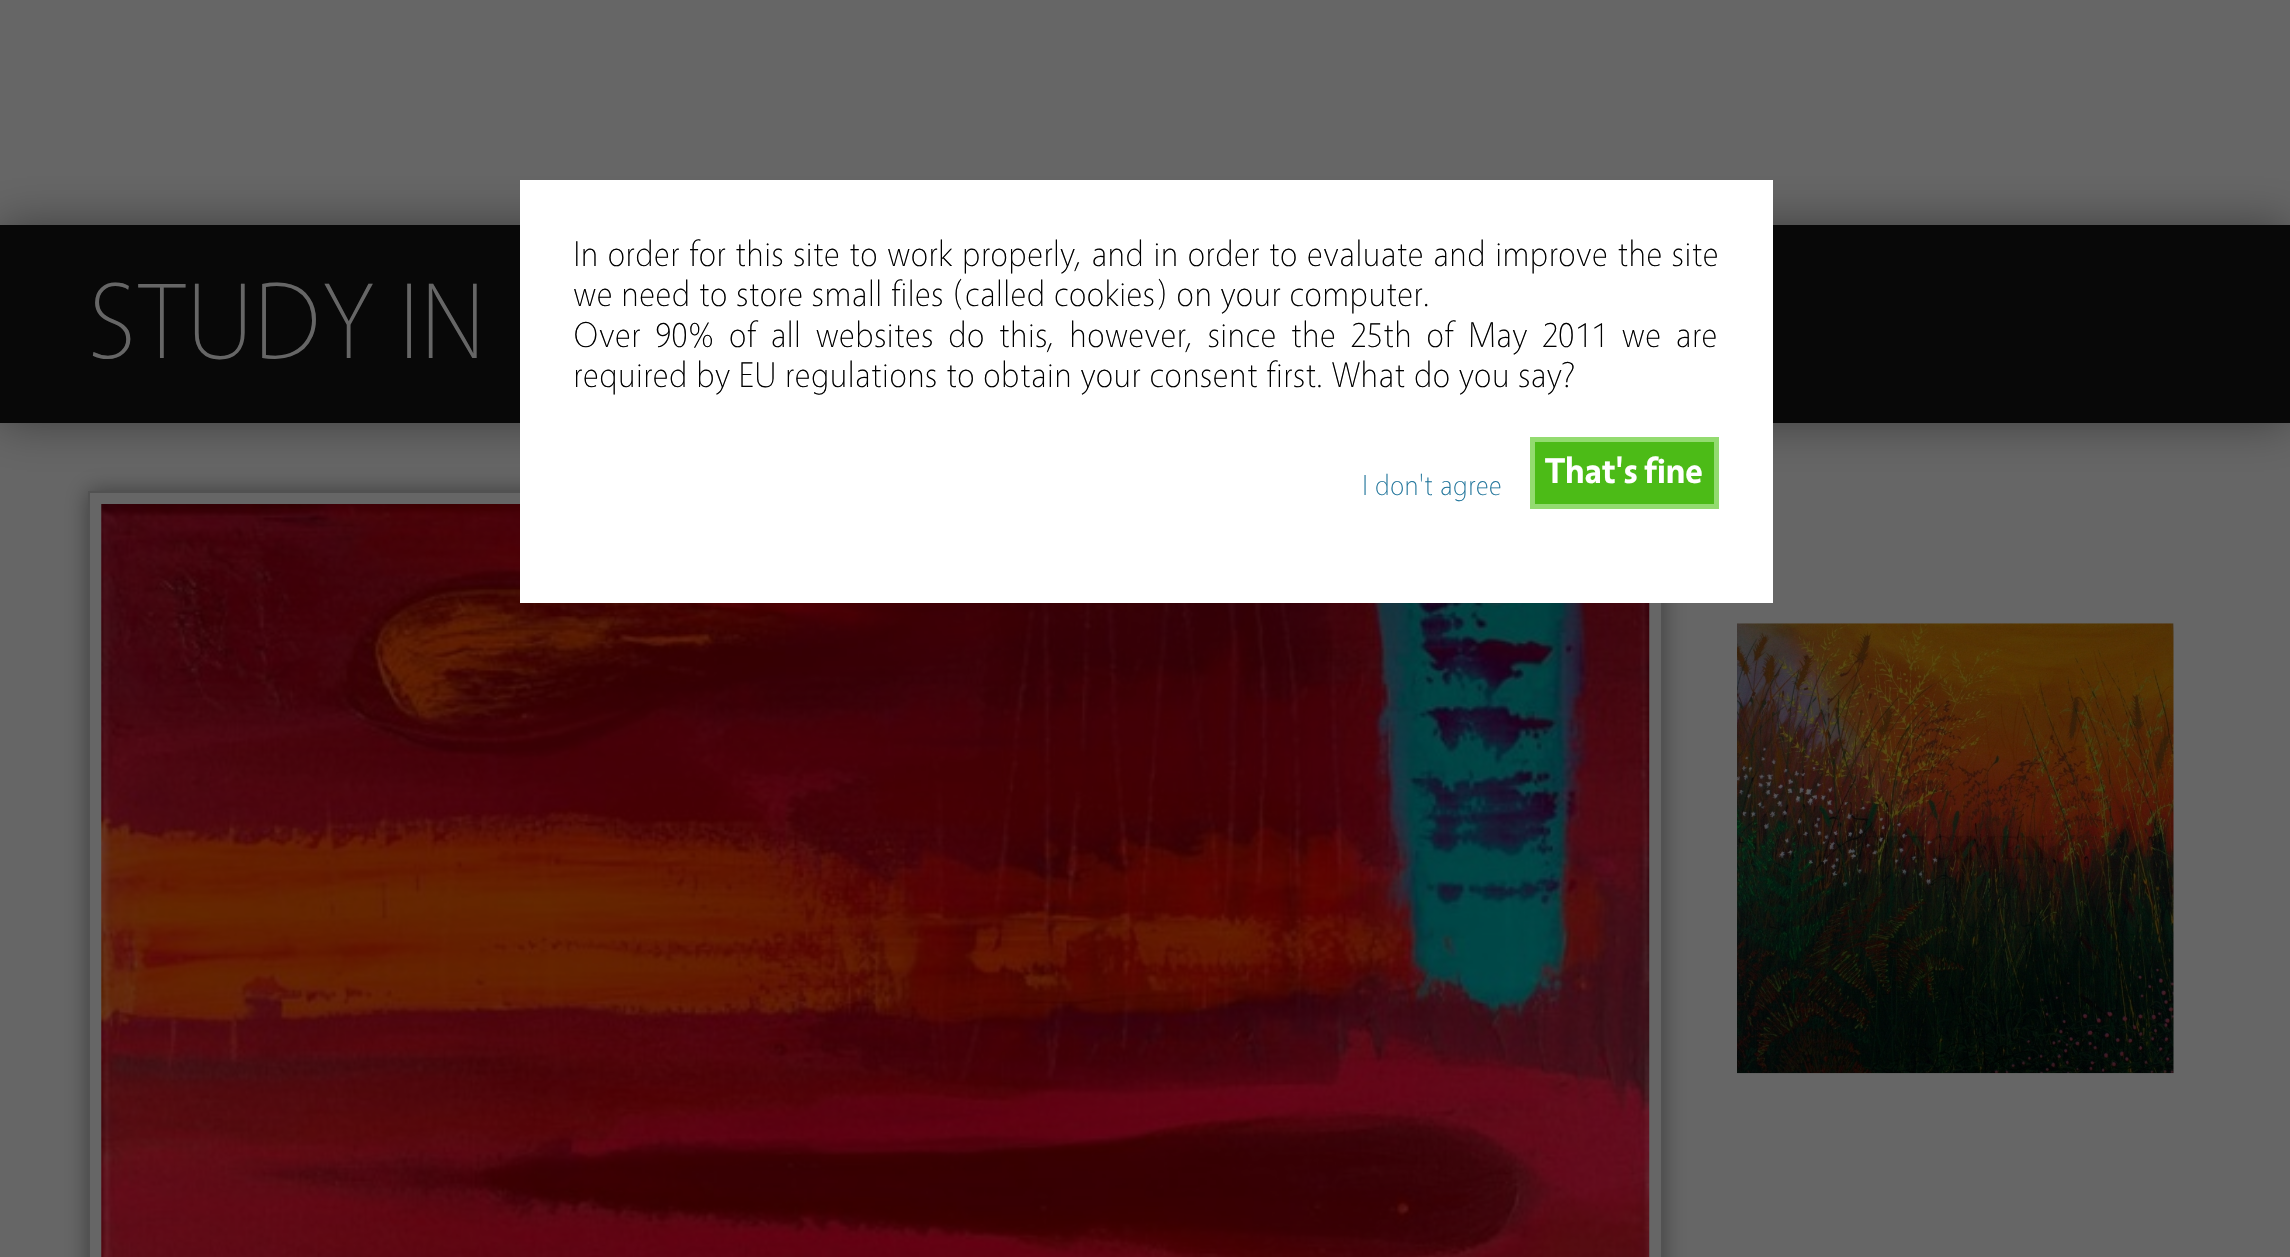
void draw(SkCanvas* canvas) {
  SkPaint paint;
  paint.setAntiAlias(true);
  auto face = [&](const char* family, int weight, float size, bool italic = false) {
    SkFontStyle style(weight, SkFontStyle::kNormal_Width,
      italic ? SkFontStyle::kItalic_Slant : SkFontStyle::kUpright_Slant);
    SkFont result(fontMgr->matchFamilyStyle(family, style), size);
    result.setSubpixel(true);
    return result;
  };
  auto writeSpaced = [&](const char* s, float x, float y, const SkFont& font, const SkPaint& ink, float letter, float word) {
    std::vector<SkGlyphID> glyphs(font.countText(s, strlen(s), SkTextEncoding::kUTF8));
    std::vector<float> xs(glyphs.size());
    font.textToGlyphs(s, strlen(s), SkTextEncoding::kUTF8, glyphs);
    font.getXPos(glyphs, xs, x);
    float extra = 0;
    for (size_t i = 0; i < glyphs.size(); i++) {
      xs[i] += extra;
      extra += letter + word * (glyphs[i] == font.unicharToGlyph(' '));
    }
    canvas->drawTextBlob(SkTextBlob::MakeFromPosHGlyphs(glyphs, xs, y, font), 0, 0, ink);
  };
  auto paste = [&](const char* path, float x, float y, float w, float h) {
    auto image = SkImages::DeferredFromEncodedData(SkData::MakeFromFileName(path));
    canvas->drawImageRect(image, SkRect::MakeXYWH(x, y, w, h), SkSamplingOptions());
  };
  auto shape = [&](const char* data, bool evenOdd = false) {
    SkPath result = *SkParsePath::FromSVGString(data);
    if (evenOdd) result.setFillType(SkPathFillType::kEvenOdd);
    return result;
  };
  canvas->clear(0xff666666);
  paint.setColor(0xff3d3d3d);
  paint.setMaskFilter(SkMaskFilter::MakeBlur(kNormal_SkBlurStyle, 22.5f));
  canvas->drawRect(SkRect::MakeXYWH(0, 225, 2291, 198), paint);
  paint.setMaskFilter(nullptr);
  paint.setColor(0xff080808);
  canvas->drawRect(SkRect::MakeXYWH(0, 225, 2290, 198), paint);
  canvas->save();
  canvas->clipPath(shape("M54 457H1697V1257H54ZM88 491H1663V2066H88Z", true), true);
  paint.setColor(0xff3d3d3d);
  paint.setMaskFilter(SkMaskFilter::MakeBlur(kNormal_SkBlurStyle, 11));
  canvas->drawRect(SkRect::MakeXYWH(88, 491, 1575, 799), paint);
  paint.setMaskFilter(nullptr);
  canvas->restore();
  paint.setStroke(true);
  paint.setStrokeWidth(2);
  paint.setColor(0xff525252);
  canvas->drawRect(SkRect::MakeXYWH(89, 492, 1573, 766), paint);
  paste("img/1.png", 101, 504, 1549, 753);
  paste("img/2.png", 1737, 623, 437, 451);
  paint.setStroke(false);
  paint.setColor(0xffffffff);
  canvas->drawRect(SkRect::MakeXYWH(520, 180, 1253, 423), paint);
  paint.setColor(0xff4cbb17);
  canvas->drawRect(SkRect::MakeXYWH(1532.5f, 439.5f, 184, 67), paint);
  paint.setStroke(true);
  paint.setStrokeWidth(5);
  paint.setColor(0xff93db70);
  canvas->drawRect(SkRect::MakeXYWH(1532.5f, 439.5f, 184, 67), paint);
  auto f0 = face("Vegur", 300, 108);
  paint.setStroke(false);
  paint.setColor(0xff666666);
  canvas->drawString("STUDY IN", 88, 358, f0, paint);
  auto f1 = face("Vegur", 300, 36);
  paint.setColor(0xff000000);
  writeSpaced("In order for this site to work properly, and in order to evaluate and improve the site", 573, 266, f1, paint, 0, 0.7f);
  canvas->drawString("we need to store small files (called cookies) on your computer.", 573, 306, f1, paint);
  writeSpaced("Over 90% of all websites do this, however, since the 25th of May 2011 we are", 573, 347, f1, paint, 0, 5.9f);
  canvas->drawString("required by EU regulations to obtain your consent first. What do you say?", 573, 387, f1, paint);
  auto f2 = face("Vegur", 700, 36);
  paint.setColor(0xffffffff);
  canvas->drawString("That's fine", 1545, 483, f2, paint);
  auto f3 = face("Vegur", 300, 29);
  paint.setColor(0xff21759b);
  canvas->drawString("I don't agree", 1362, 495, f3, paint);
}
